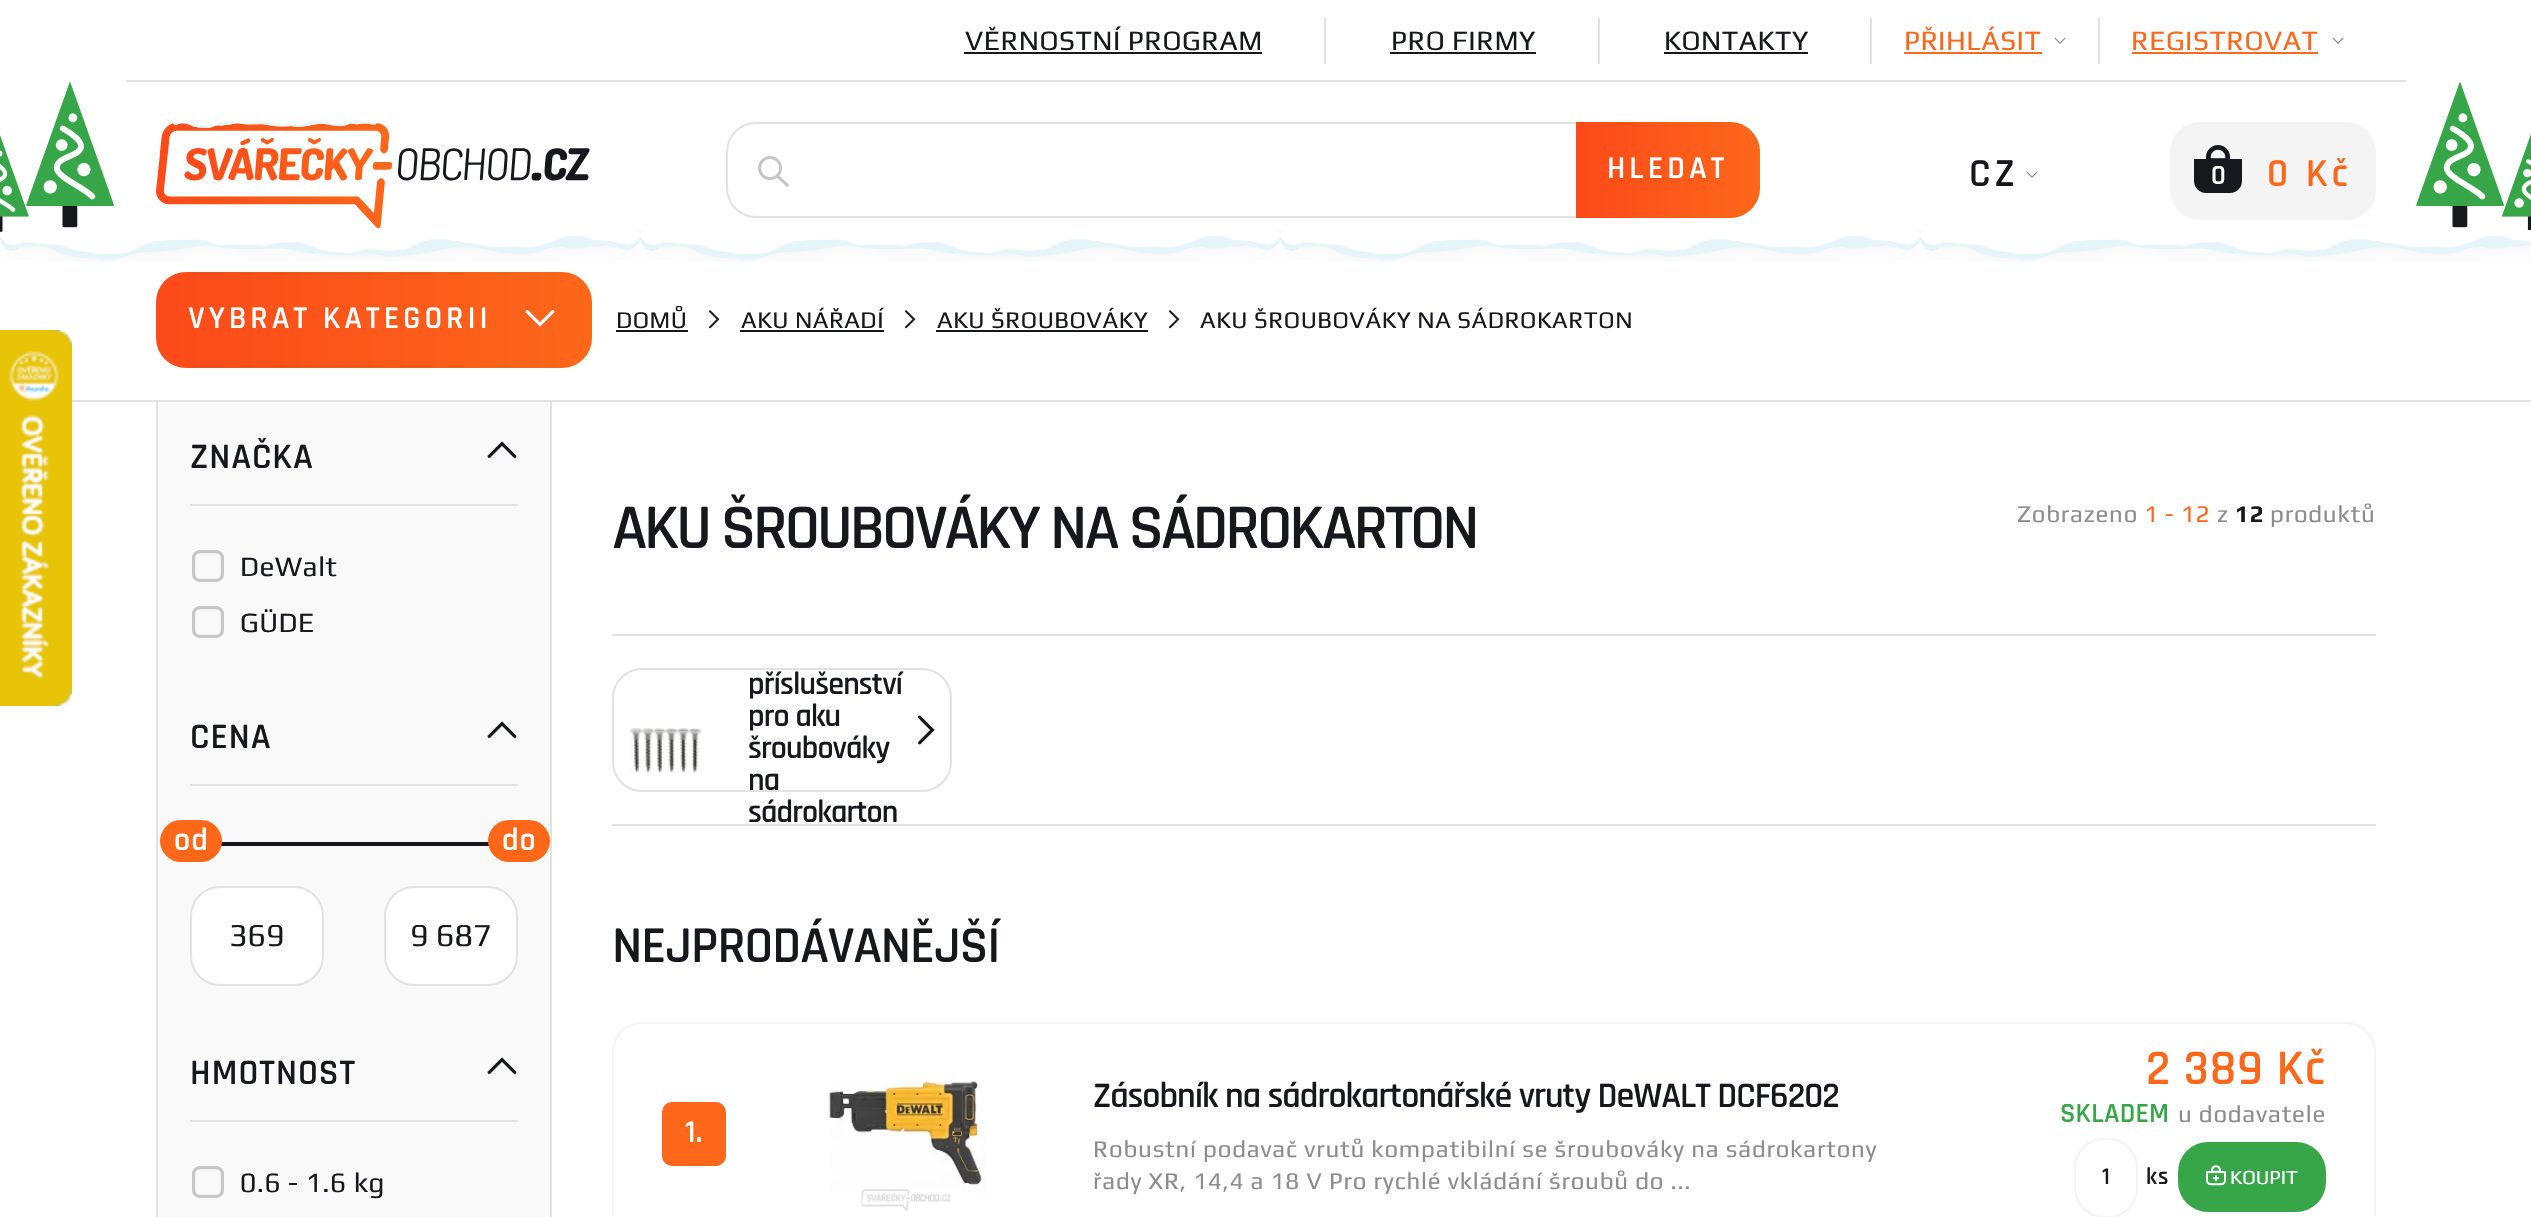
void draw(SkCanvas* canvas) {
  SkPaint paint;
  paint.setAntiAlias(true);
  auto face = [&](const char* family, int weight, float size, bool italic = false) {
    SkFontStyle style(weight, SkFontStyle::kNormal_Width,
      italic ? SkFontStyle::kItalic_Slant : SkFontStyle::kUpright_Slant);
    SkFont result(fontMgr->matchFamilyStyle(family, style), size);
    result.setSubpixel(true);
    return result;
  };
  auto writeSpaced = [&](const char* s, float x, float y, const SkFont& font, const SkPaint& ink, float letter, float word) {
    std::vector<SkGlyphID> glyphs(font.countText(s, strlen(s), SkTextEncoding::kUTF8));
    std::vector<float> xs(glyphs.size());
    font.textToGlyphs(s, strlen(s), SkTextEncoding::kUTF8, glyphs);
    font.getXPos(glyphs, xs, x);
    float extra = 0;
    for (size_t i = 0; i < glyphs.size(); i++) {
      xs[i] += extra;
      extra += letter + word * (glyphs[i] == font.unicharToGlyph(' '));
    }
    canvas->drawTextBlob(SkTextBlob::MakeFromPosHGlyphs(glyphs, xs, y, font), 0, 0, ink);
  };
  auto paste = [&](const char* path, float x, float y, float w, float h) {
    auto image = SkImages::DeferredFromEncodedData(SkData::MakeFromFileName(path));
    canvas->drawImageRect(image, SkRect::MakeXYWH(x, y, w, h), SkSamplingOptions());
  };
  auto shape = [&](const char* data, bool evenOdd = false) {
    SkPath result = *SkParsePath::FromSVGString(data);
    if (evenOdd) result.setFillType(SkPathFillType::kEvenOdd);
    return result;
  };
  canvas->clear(0xffffffff);
  paste("img/1.png", 0, 330, 72, 376);
  {
    const struct { float x, y, w, h; SkColor color; } items[] = {
      {0, 238, 1921, 2, 0xffe2e2e3},
      {126, 80, 2280, 2, 0xffe2e2e3},
      {964, 52, 298, 2, 0xff16181e},
      {1324, 18, 2, 46, 0xffe2e2e3},
      {1390, 52, 146, 2, 0xff16181e},
      {1598, 18, 2, 46, 0xffe2e2e3},
      {1664, 52, 144, 2, 0xff16181e},
      {1870, 18, 2, 46, 0xffe2e2e3},
      {1904, 52, 138, 2, 0xfffc671a},
    };
    for (auto [x, y, w, h, color] : items) {
      paint.setColor(color);
      canvas->drawRect(SkRect::MakeXYWH(x, y, w, h), paint);
    }
  }
  paste("img/2.png", 2054, 37, 12, 7);
  paint.setColor(0xffe2e2e3);
  canvas->drawRect(SkRect::MakeXYWH(2098, 18, 2, 46), paint);
  paint.setColor(0xfffc671a);
  canvas->drawRect(SkRect::MakeXYWH(2132, 52, 186, 2), paint);
  paste("img/2.png", 2332, 37, 12, 7);
  paste("img/3.png", 0, 135, 29, 97);
  paste("img/4.png", 26, 82, 88, 146);
  paste("img/6.png", 156, 123, 434, 105);
  paste("img/5.png", 172, 120, 206, 9);
  paint.setStroke(true);
  paint.setStrokeWidth(2);
  paint.setColor(0xffe2e2e3);
  canvas->drawRoundRect(SkRect::MakeXYWH(727, 123, 1032, 94), 29, 29, paint);
  paste("img/7.png", 758, 156, 31, 31);
  paint.setStroke(false);
  {
    const SkColor colors[] = {0xfffc4a1a, 0xfffc4a1a, 0xfffc671a};
    const float stops[] = {0, 0.5f, 1};
    const SkPoint ends[] = {{1392, 170}, {1760, 170}};
    paint.setShader(SkGradientShader::MakeLinear(ends, colors, stops, 3, SkTileMode::kClamp));
    paint.setAlpha(255);
  }
  canvas->drawPath(shape("M1576 122H1730C1746.5 122 1760 135.5 1760 152V188C1760 204.5 1746.5 218 1730 218H1576Z"), paint);
  paste("img/2.png", 2026, 171, 12, 7);
  paint.setShader(nullptr);
  paint.setColor(0xfff4f4f4);
  canvas->drawRoundRect(SkRect::MakeXYWH(2170, 122, 206, 98), 30, 30, paint);
  paste("img/8.png", 2194, 145, 48, 48);
  paste("img/9.png", 2416, 82, 88, 146);
  paste("img/10.png", 2502, 134, 29, 96);
  paste("img/11.png", 0, 230, 2531, 32);
  paint.setColor(0xffe2e2e3);
  canvas->drawRect(SkRect::MakeXYWH(72, 400, 2459, 2), paint);
  {
    const SkColor colors[] = {0xfffc4a1a, 0xfffc4a1a, 0xfffc671a};
    const float stops[] = {0, 0.5f, 1};
    const SkPoint ends[] = {{-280, 320}, {592, 320}};
    paint.setShader(SkGradientShader::MakeLinear(ends, colors, stops, 3, SkTileMode::kClamp));
    paint.setAlpha(255);
  }
  canvas->drawRoundRect(SkRect::MakeXYWH(156, 272, 436, 96), 30, 30, paint);
  paste("img/12.png", 525, 310, 30, 17);
  paint.setShader(nullptr);
  paint.setColor(0xff16181e);
  canvas->drawRect(SkRect::MakeXYWH(616, 330, 72, 2), paint);
  paste("img/13.png", 709, 310, 11, 19);
  canvas->drawRect(SkRect::MakeXYWH(740, 330, 144, 2), paint);
  paste("img/13.png", 905, 310, 11, 19);
  canvas->drawRect(SkRect::MakeXYWH(936, 330, 212, 2), paint);
  paste("img/13.png", 1169, 310, 11, 19);
  paint.setColor(0xfff9f9f9);
  canvas->drawRect(SkRect::MakeXYWH(158, 402, 392, 815), paint);
  paint.setColor(0xffe2e2e3);
  canvas->drawPath(shape("M156 402H552V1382C552 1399 539 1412 522 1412H186C169 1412 156 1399 156 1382ZM158 402H550V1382C550 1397 537 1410 522 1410H186C171 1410 158 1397 158 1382Z", true), paint);
  paste("img/14.png", 487, 441, 30, 17);
  canvas->drawRect(SkRect::MakeXYWH(190, 504, 328, 2), paint);
  paste("img/15.png", 192, 550, 32, 32);
  paste("img/15.png", 192, 606, 32, 32);
  paste("img/14.png", 487, 721, 30, 17);
  canvas->drawRect(SkRect::MakeXYWH(190, 784, 328, 2), paint);
  paint.setColor(0xff16181e);
  canvas->drawRect(SkRect::MakeXYWH(221, 842, 268, 4), paint);
  paint.setColor(0xfffc671a);
  canvas->drawRoundRect(SkRect::MakeXYWH(160, 820, 62, 42), 21, 21, paint);
  canvas->drawRoundRect(SkRect::MakeXYWH(488, 820, 62, 42), 21, 21, paint);
  paint.setColor(0xffffffff);
  canvas->drawRoundRect(SkRect::MakeXYWH(191, 887, 132, 98), 29, 29, paint);
  paint.setStroke(true);
  paint.setColor(0xffe2e2e3);
  canvas->drawRoundRect(SkRect::MakeXYWH(191, 887, 132, 98), 29, 29, paint);
  paint.setStroke(false);
  paint.setColor(0xffffffff);
  canvas->drawRoundRect(SkRect::MakeXYWH(385, 887, 132, 98), 29, 29, paint);
  paint.setStroke(true);
  paint.setColor(0xffe2e2e3);
  canvas->drawRoundRect(SkRect::MakeXYWH(385, 887, 132, 98), 29, 29, paint);
  paste("img/14.png", 487, 1057, 30, 17);
  paint.setStroke(false);
  canvas->drawRect(SkRect::MakeXYWH(190, 1120, 328, 2), paint);
  paste("img/15.png", 192, 1166, 32, 32);
  canvas->drawRect(SkRect::MakeXYWH(612, 634, 1764, 2), paint);
  paint.setStroke(true);
  canvas->drawRoundRect(SkRect::MakeXYWH(613, 669, 338, 122), 29, 29, paint);
  paste("img/16.png", 630, 728, 72, 45);
  paste("img/17.png", 918, 715, 17, 30);
  paint.setStroke(false);
  canvas->drawRect(SkRect::MakeXYWH(612, 824, 1764, 2), paint);
  paint.setStroke(true);
  paint.setColor(0xfff4f4f4);
  canvas->drawRoundRect(SkRect::MakeXYWH(613, 1023, 1762, 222), 29, 29, paint);
  paint.setStroke(false);
  paint.setColor(0xfffc671a);
  canvas->drawRoundRect(SkRect::MakeXYWH(662, 1102, 64, 64), 10, 10, paint);
  paste("img/18.png", 829, 1079, 157, 133);
  paint.setStroke(true);
  paint.setColor(0xfff4f4f4);
  canvas->drawRoundRect(SkRect::MakeXYWH(2075, 1139, 62, 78), 29, 29, paint);
  paint.setStroke(false);
  paint.setColor(0xff36a648);
  canvas->drawRoundRect(SkRect::MakeXYWH(2178, 1142, 148, 70), 30, 30, paint);
  paste("img/19.png", 2206, 1165, 20, 21);
  auto f0 = face("Play", 400, 28);
  paint.setColor(0xff16181e);
  {
    const struct { const char* s; float x, y; } items[] = {
      {"VĚRNOSTNÍ PROGRAM", 965, 50},
      {"PRO FIRMY", 1391, 50},
      {"KONTAKTY", 1664, 50},
    };
    for (auto [s, x, y] : items) {
      writeSpaced(s, x, y, f0, paint, 0.5f, 0);
    }
  }
  paint.setColor(0xfffc671a);
  writeSpaced("PŘIHLÁSIT", 1904, 50, f0, paint, 0.5f, 0);
  writeSpaced("REGISTROVAT", 2131, 50, f0, paint, 0.5f, 0);
  auto f1 = face("Rajdhani", 600, 32);
  paint.setColor(0xffffffff);
  writeSpaced("HLEDAT", 1607, 178, f1, paint, 4, 0);
  auto f2 = face("Rajdhani", 600, 40);
  paint.setColor(0xff16181e);
  writeSpaced("CZ", 1969, 186, f2, paint, 4, 0);
  auto f3 = face("Rajdhani", 600, 28);
  paint.setColor(0xffffffff);
  writeSpaced("0", 2211, 184, f3, paint, 1, 0);
  paint.setColor(0xfffc671a);
  writeSpaced("0 Kč", 2267, 186, f2, paint, 4, 0);
  paint.setColor(0xffffffff);
  writeSpaced("VYBRAT KATEGORII", 188, 328, f1, paint, 4, 0);
  auto f4 = face("Play", 400, 24);
  paint.setColor(0xff16181e);
  {
    const struct { const char* s; float x, y; } items[] = {
      {"DOMŮ", 616, 328},
      {"AKU NÁŘADÍ", 741, 328},
      {"AKU ŠROUBOVÁKY", 937, 328},
      {"AKU ŠROUBOVÁKY NA SÁDROKARTON", 1200, 328},
    };
    for (auto [s, x, y] : items) {
      writeSpaced(s, x, y, f4, paint, 0.5f, 0);
    }
  }
  auto f5 = face("Rajdhani", 600, 36);
  writeSpaced("ZNAČKA", 190, 468, f5, paint, 1, 0);
  writeSpaced("DeWalt", 240, 576, f0, paint, 0.5f, 0);
  writeSpaced("GÜDE", 240, 632, f0, paint, 0.5f, 0);
  writeSpaced("CENA", 190, 748, f5, paint, 1, 0);
  paint.setColor(0xffffffff);
  writeSpaced("od", 174, 850, f1, paint, 1, 0);
  writeSpaced("do", 502, 850, f1, paint, 1, 0);
  auto f6 = face("Play", 400, 32);
  paint.setColor(0xff16181e);
  canvas->drawString("369", 229, 946, f6, paint);
  canvas->drawString("9 687", 410, 946, f6, paint);
  writeSpaced("HMOTNOST", 190, 1084, f5, paint, 1, 0);
  writeSpaced("0.6 - 1.6 kg", 240, 1192, f0, paint, 0.5f, 0);
  auto f7 = face("Rajdhani", 600, 64);
  writeSpaced("AKU ŠROUBOVÁKY NA SÁDROKARTON", 612, 548, f7, paint, -3, 0);
  paint.setColor(0xff8b8c8f);
  writeSpaced("Zobrazeno", 2017, 522, f4, paint, 0.8f, 0);
  paint.setColor(0xfffc671a);
  writeSpaced("1 - 12", 2144, 522, f4, paint, 0.8f, 0);
  paint.setColor(0xff8b8c8f);
  writeSpaced("z", 2217, 522, f4, paint, 0.8f, 0);
  auto f8 = face("Play", 700, 24);
  paint.setColor(0xff16181e);
  writeSpaced("12", 2235, 522, f8, paint, 0.8f, 0);
  paint.setColor(0xff8b8c8f);
  writeSpaced("produktů", 2270, 522, f4, paint, 0.8f, 0);
  paint.setColor(0xff16181e);
  {
    const struct { const char* s; float x, y; } items[] = {
      {"příslušenství", 748, 694},
      {"pro aku", 748, 726},
      {"šroubováky", 748, 758},
      {"na", 748, 790},
      {"sádrokarton", 748, 822},
    };
    for (auto [s, x, y] : items) {
      writeSpaced(s, x, y, f1, paint, -0.9f, 0);
    }
  }
  auto f9 = face("Rajdhani", 600, 52);
  writeSpaced("NEJPRODÁVANĚJŠÍ", 612, 962, f9, paint, -1, 0);
  paint.setColor(0xffffffff);
  writeSpaced("1.", 685, 1142, f1, paint, 0.25f, 0);
  paint.setColor(0xff16181e);
  writeSpaced("Zásobník na sádrokartonářské vruty DeWALT DCF6202", 1093, 1107, f5, paint, -1, 0);
  paint.setColor(0xff8b8c8f);
  writeSpaced("Robustní podavač vrutů kompatibilní se šroubováky na sádrokartony", 1093, 1157, f4, paint, 0.8f, 0);
  writeSpaced("řady XR, 14,4 a 18 V Pro rychlé vkládání šroubů do ...", 1093, 1189, f4, paint, 0.8f, 0);
  auto f10 = face("Rajdhani", 600, 50);
  paint.setColor(0xfffc671a);
  writeSpaced("2 389 Kč", 2146, 1084, f10, paint, 0.8f, 0);
  paint.setColor(0xff36a648);
  writeSpaced("SKLADEM", 2060, 1122, f3, paint, 0.25f, 0);
  paint.setColor(0xff8b8c8f);
  writeSpaced("u dodavatele", 2178, 1122, f4, paint, 0.8f, 0);
  auto f11 = face("Rajdhani", 600, 24);
  paint.setColor(0xff16181e);
  writeSpaced("1", 2102, 1184, f11, paint, 0.25f, 0);
  writeSpaced("ks", 2146, 1184, f11, paint, 1, 0);
  auto f12 = face("Play", 400, 20);
  paint.setColor(0xffffffff);
  canvas->drawString("KOUPIT", 2230, 1184, f12, paint);
}
